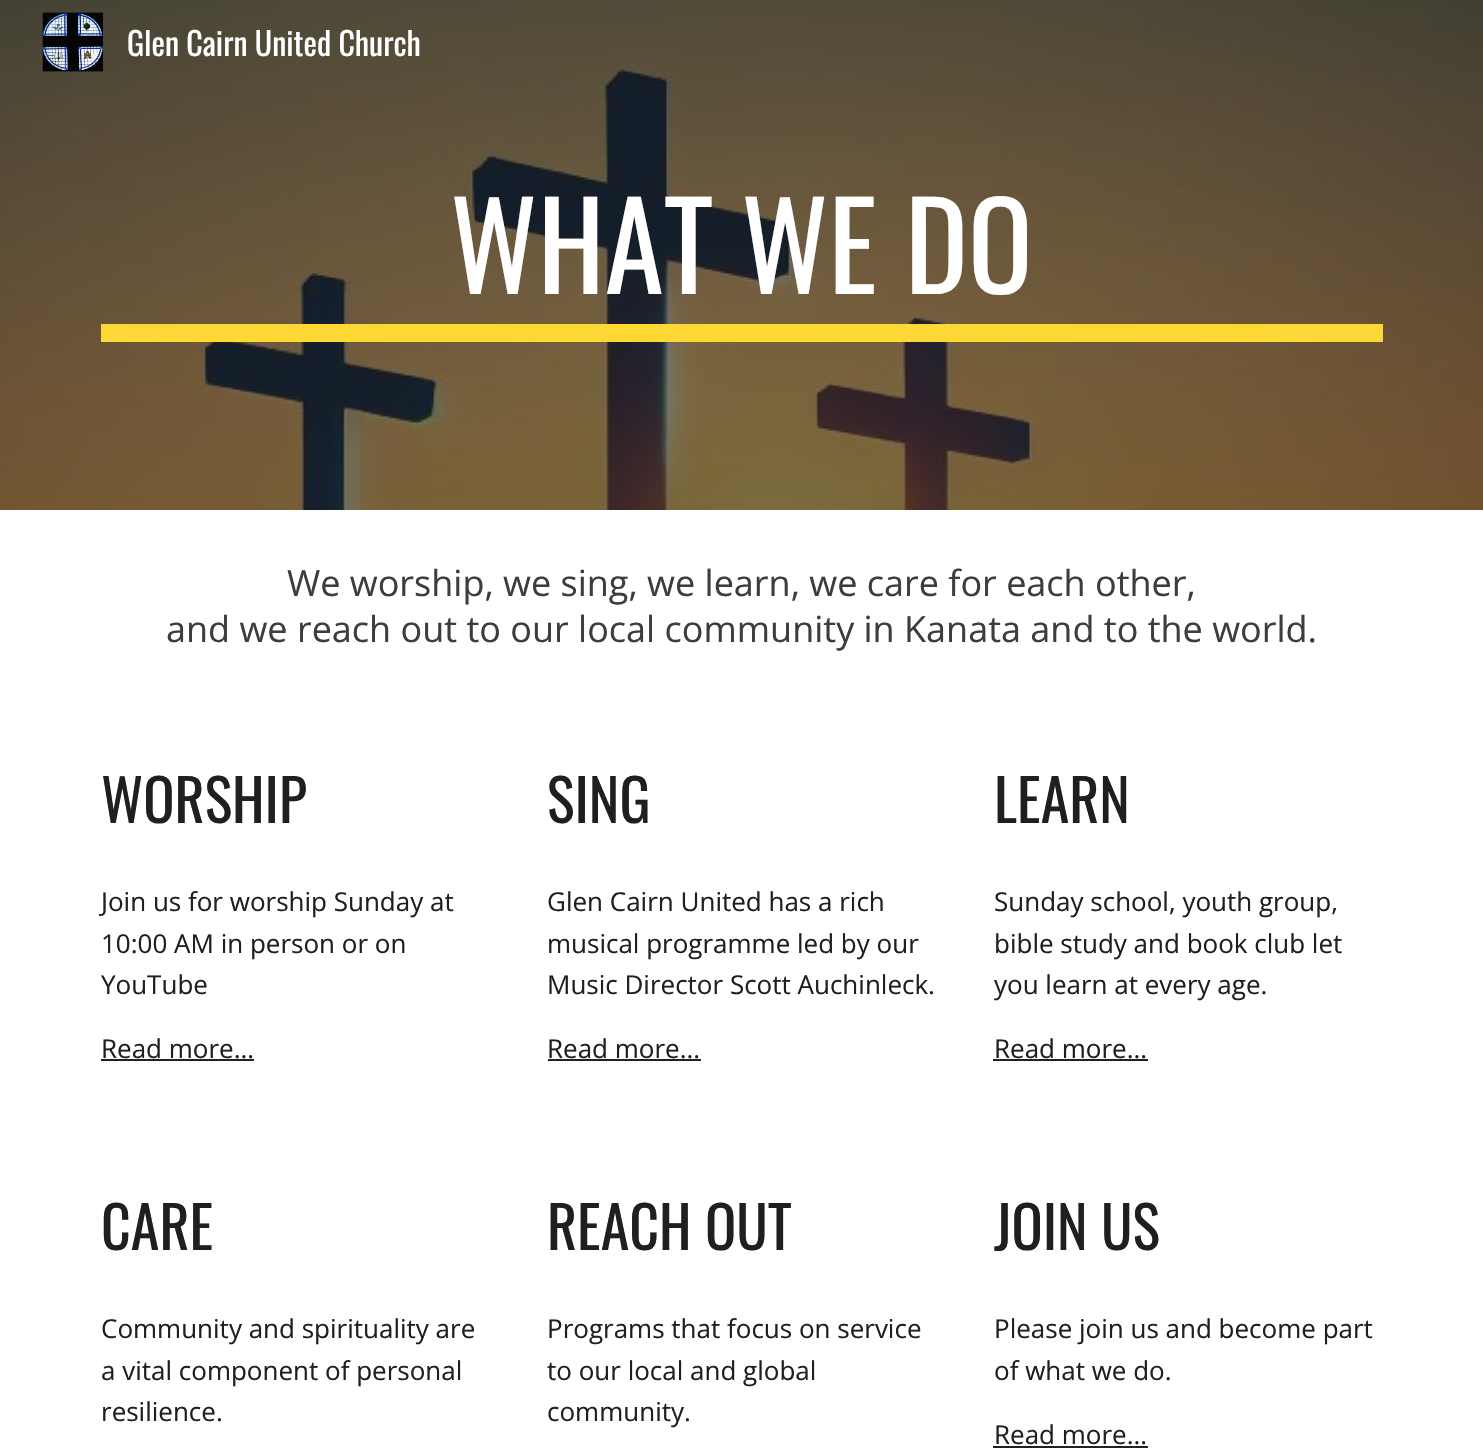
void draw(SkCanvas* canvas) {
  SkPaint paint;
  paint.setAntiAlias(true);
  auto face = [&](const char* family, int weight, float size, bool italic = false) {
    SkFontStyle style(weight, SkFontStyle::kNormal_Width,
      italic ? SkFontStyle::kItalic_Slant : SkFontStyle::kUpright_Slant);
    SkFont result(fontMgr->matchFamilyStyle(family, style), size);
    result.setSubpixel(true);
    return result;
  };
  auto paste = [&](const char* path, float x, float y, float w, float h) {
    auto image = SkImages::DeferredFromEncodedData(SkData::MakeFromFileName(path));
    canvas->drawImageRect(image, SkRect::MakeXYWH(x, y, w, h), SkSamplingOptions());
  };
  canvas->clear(0xffffffff);
  paste("img/2.png", 0, 0, 1483, 510);
  paste("img/1.png", 42, 12, 61, 60);
  {
    const struct { float x, y, w, h; SkColor color; } items[] = {
      {101, 324, 1282, 18, 0xfffdd835},
      {101, 1059, 153, 2, 0xff212121},
      {548, 1059, 153, 2, 0xff212121},
      {993, 1059, 155, 2, 0xff212121},
      {993, 1446, 155, 2, 0xff212121},
    };
    for (auto [x, y, w, h, color] : items) {
      paint.setColor(color);
      canvas->drawRect(SkRect::MakeXYWH(x, y, w, h), paint);
    }
  }
  auto f0 = face("Oswald", 400, 32);
  paint.setColor(0xffffffff);
  canvas->drawString("Glen Cairn United Church", 127, 56, f0, paint);
  auto f1 = face("Oswald", 400, 120);
  canvas->drawString("WHAT WE DO", 450, 294, f1, paint);
  auto f2 = face("Open Sans", 400, 36);
  paint.setColor(0xff3d3d3d);
  canvas->drawString("We worship, we sing, we learn, we care for each other,", 287, 596, f2, paint);
  canvas->drawString("and we reach out to our local community in Kanata and to the world.", 166, 642, f2, paint);
  auto f3 = face("Oswald", 400, 58);
  paint.setColor(0xff1f1f1f);
  canvas->drawString("WORSHIP", 101, 823, f3, paint);
  auto f4 = face("Open Sans", 400, 26);
  {
    const struct { const char* s; float x, y; } items[] = {
      {"Join us for worship Sunday at", 101, 911},
      {"10:00 AM in person or on", 101, 953},
      {"YouTube", 101, 994},
      {"Read more...", 101, 1058},
    };
    for (auto [s, x, y] : items) {
      canvas->drawString(s, x, y, f4, paint);
    }
  }
  canvas->drawString("SING", 547, 823, f3, paint);
  {
    const struct { const char* s; float x, y; } items[] = {
      {"Glen Cairn United has a rich", 547, 911},
      {"musical programme led by our", 547, 953},
      {"Music Director Scott Auchinleck.", 547, 994},
      {"Read more...", 547, 1058},
    };
    for (auto [s, x, y] : items) {
      canvas->drawString(s, x, y, f4, paint);
    }
  }
  canvas->drawString("LEARN", 994, 823, f3, paint);
  {
    const struct { const char* s; float x, y; } items[] = {
      {"Sunday school, youth group,", 994, 911},
      {"bible study and book club let", 994, 953},
      {"you learn at every age.", 994, 994},
      {"Read more...", 994, 1058},
    };
    for (auto [s, x, y] : items) {
      canvas->drawString(s, x, y, f4, paint);
    }
  }
  canvas->drawString("CARE", 101, 1250, f3, paint);
  {
    const struct { const char* s; float x, y; } items[] = {
      {"Community and spirituality are", 101, 1338},
      {"a vital component of personal", 101, 1380},
      {"resilience.", 101, 1421},
    };
    for (auto [s, x, y] : items) {
      canvas->drawString(s, x, y, f4, paint);
    }
  }
  canvas->drawString("REACH OUT", 547, 1250, f3, paint);
  {
    const struct { const char* s; float x, y; } items[] = {
      {"Programs that focus on service", 547, 1338},
      {"to our local and global", 547, 1380},
      {"community.", 547, 1421},
    };
    for (auto [s, x, y] : items) {
      canvas->drawString(s, x, y, f4, paint);
    }
  }
  canvas->drawString("JOIN US", 994, 1250, f3, paint);
  {
    const struct { const char* s; float x, y; } items[] = {
      {"Please join us and become part", 994, 1338},
      {"of what we do.", 994, 1380},
      {"Read more...", 994, 1444},
    };
    for (auto [s, x, y] : items) {
      canvas->drawString(s, x, y, f4, paint);
    }
  }
}
